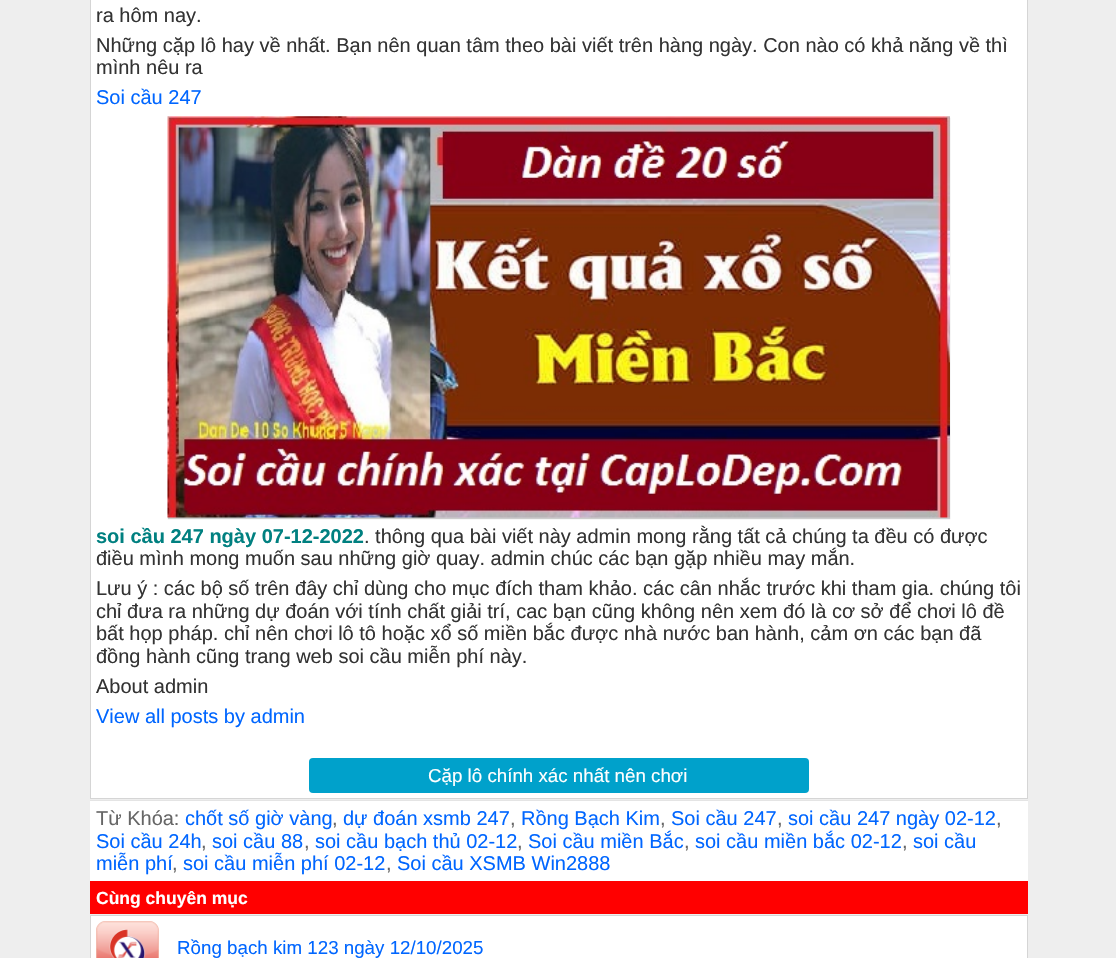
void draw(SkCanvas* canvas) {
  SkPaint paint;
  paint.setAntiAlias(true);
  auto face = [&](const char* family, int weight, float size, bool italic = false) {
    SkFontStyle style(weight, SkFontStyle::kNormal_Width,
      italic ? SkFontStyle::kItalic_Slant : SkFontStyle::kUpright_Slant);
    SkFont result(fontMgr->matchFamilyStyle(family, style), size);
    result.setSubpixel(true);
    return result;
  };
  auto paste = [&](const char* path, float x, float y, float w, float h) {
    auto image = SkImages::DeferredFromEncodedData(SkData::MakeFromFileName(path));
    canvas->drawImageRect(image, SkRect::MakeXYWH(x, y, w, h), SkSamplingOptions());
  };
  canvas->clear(0xffeeeeee);
  paint.setColor(0xffffffff);
  canvas->drawRect(SkRect::MakeXYWH(90.5f, -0.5f, 937, 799), paint);
  paint.setStroke(true);
  paint.setStrokeWidth(1);
  paint.setColor(0xffd5d5d5);
  canvas->drawRect(SkRect::MakeXYWH(90.5f, -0.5f, 937, 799), paint);
  paint.setStroke(false);
  paint.setColor(0x33000000);
  paint.setMaskFilter(SkMaskFilter::MakeBlur(kNormal_SkBlurStyle, 0.5f));
  canvas->drawRect(SkRect::MakeXYWH(168, 118, 782, 401), paint);
  paint.setMaskFilter(nullptr);
  paste("img/1.png", 167, 116, 783, 402);
  paint.setColor(0xff00a1cb);
  canvas->drawRoundRect(SkRect::MakeXYWH(309, 758, 500, 35), 4, 4, paint);
  {
    const struct { float x, y, w, h; SkColor color; } items[] = {
      {90, 801, 938, 80, 0xffffffff},
      {90, 800, 938, 1, 0xffe4e4e4},
      {90, 881, 938, 33, 0xffff0000},
    };
    for (auto [x, y, w, h, color] : items) {
      paint.setColor(color);
      canvas->drawRect(SkRect::MakeXYWH(x, y, w, h), paint);
    }
  }
  paint.setColor(0xffffffff);
  canvas->drawRect(SkRect::MakeXYWH(90.5f, 915.5f, 937, 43), paint);
  paint.setStroke(true);
  paint.setColor(0xffd5d5d5);
  canvas->drawRect(SkRect::MakeXYWH(90.5f, 915.5f, 937, 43), paint);
  paste("img/2.png", 96, 921, 63, 37);
  auto f0 = face("Liberation Sans", 400, 20);
  paint.setStroke(false);
  paint.setColor(0xff333333);
  {
    const struct { const char* s; float x, y; } items[] = {
      {"ra hôm nay.", 96, 22},
      {"Những cặp lô hay về nhất. Bạn nên quan tâm theo bài viết trên hàng ngày. Con nào có khả năng về thì", 96, 52},
      {"mình nêu ra", 96, 74},
    };
    for (auto [s, x, y] : items) {
      canvas->drawString(s, x, y, f0, paint);
    }
  }
  paint.setColor(0xff0066ff);
  canvas->drawString("Soi cầu 247", 96, 104, f0, paint);
  auto f1 = face("Liberation Sans", 700, 20);
  paint.setColor(0xff008080);
  canvas->drawString("soi cầu 247 ngày 07-12-2022", 96, 543, f1, paint);
  paint.setColor(0xff333333);
  {
    const struct { const char* s; float x, y; } items[] = {
      {". thông qua bài viết này admin mong rằng tất cả chúng ta đều có được", 364, 543},
      {"điều mình mong muốn sau những giờ quay. admin chúc các bạn gặp nhiều may mắn.", 96, 565},
      {"Lưu ý : các bộ số trên đây chỉ dùng cho mục đích tham khảo. các cân nhắc trước khi tham gia. chúng tôi", 96, 595},
      {"chỉ đưa ra những dự đoán với tính chất giải trí, cac bạn cũng không nên xem đó là cơ sở để chơi lô đề", 96, 618},
      {"bất họp pháp. chỉ nên chơi lô tô hoặc xổ số miền bắc được nhà nước ban hành, cảm ơn các bạn đã", 96, 640},
      {"đồng hành cũng trang web soi cầu miễn phí này.", 96, 663},
      {"About admin", 96, 693},
    };
    for (auto [s, x, y] : items) {
      canvas->drawString(s, x, y, f0, paint);
    }
  }
  paint.setColor(0xff0066ff);
  canvas->drawString("View all posts by admin", 96, 723, f0, paint);
  auto f2 = face("Liberation Sans", 400, 18.75f);
  paint.setColor(0xffffffff);
  canvas->drawString("Cặp lô chính xác nhất nên chơi", 428, 782, f2, paint);
  paint.setColor(0xff666666);
  canvas->drawString("Từ Khóa:", 96, 825, f0, paint);
  paint.setColor(0xff0066ff);
  canvas->drawString("chốt số giờ vàng", 185, 825, f0, paint);
  paint.setColor(0xff666666);
  canvas->drawString(",", 332, 825, f0, paint);
  paint.setColor(0xff0066ff);
  canvas->drawString("dự đoán xsmb 247", 343, 825, f0, paint);
  paint.setColor(0xff666666);
  canvas->drawString(",", 510, 825, f0, paint);
  paint.setColor(0xff0066ff);
  canvas->drawString("Rồng Bạch Kim", 521, 825, f0, paint);
  paint.setColor(0xff666666);
  canvas->drawString(",", 660, 825, f0, paint);
  paint.setColor(0xff0066ff);
  canvas->drawString("Soi cầu 247", 671, 825, f0, paint);
  paint.setColor(0xff666666);
  canvas->drawString(",", 777, 825, f0, paint);
  paint.setColor(0xff0066ff);
  canvas->drawString("soi cầu 247 ngày 02-12", 788, 825, f0, paint);
  paint.setColor(0xff666666);
  canvas->drawString(",", 996, 825, f0, paint);
  paint.setColor(0xff0066ff);
  canvas->drawString("Soi cầu 24h", 96, 848, f0, paint);
  paint.setColor(0xff666666);
  canvas->drawString(",", 201, 848, f0, paint);
  paint.setColor(0xff0066ff);
  canvas->drawString("soi cầu 88", 212, 848, f0, paint);
  paint.setColor(0xff666666);
  canvas->drawString(",", 304, 848, f0, paint);
  paint.setColor(0xff0066ff);
  canvas->drawString("soi cầu bạch thủ 02-12", 315, 848, f0, paint);
  paint.setColor(0xff666666);
  canvas->drawString(",", 517, 848, f0, paint);
  paint.setColor(0xff0066ff);
  canvas->drawString("Soi cầu miền Bắc", 528, 848, f0, paint);
  paint.setColor(0xff666666);
  canvas->drawString(",", 684, 848, f0, paint);
  paint.setColor(0xff0066ff);
  canvas->drawString("soi cầu miền bắc 02-12", 695, 848, f0, paint);
  paint.setColor(0xff666666);
  canvas->drawString(",", 902, 848, f0, paint);
  paint.setColor(0xff0066ff);
  canvas->drawString("soi cầu", 913, 848, f0, paint);
  canvas->drawString("miễn phí", 96, 870, f0, paint);
  paint.setColor(0xff666666);
  canvas->drawString(",", 172, 870, f0, paint);
  paint.setColor(0xff0066ff);
  canvas->drawString("soi cầu miễn phí 02-12", 183, 870, f0, paint);
  paint.setColor(0xff666666);
  canvas->drawString(",", 386, 870, f0, paint);
  paint.setColor(0xff0066ff);
  canvas->drawString("Soi cầu XSMB Win2888", 397, 870, f0, paint);
  auto f3 = face("Liberation Sans", 700, 17.5f);
  paint.setColor(0xffffffff);
  canvas->drawString("Cùng chuyên mục", 96, 904, f3, paint);
  paint.setColor(0xff0066ff);
  canvas->drawString("Rồng bạch kim 123 ngày 12/10/2025", 177, 954, f2, paint);
}
